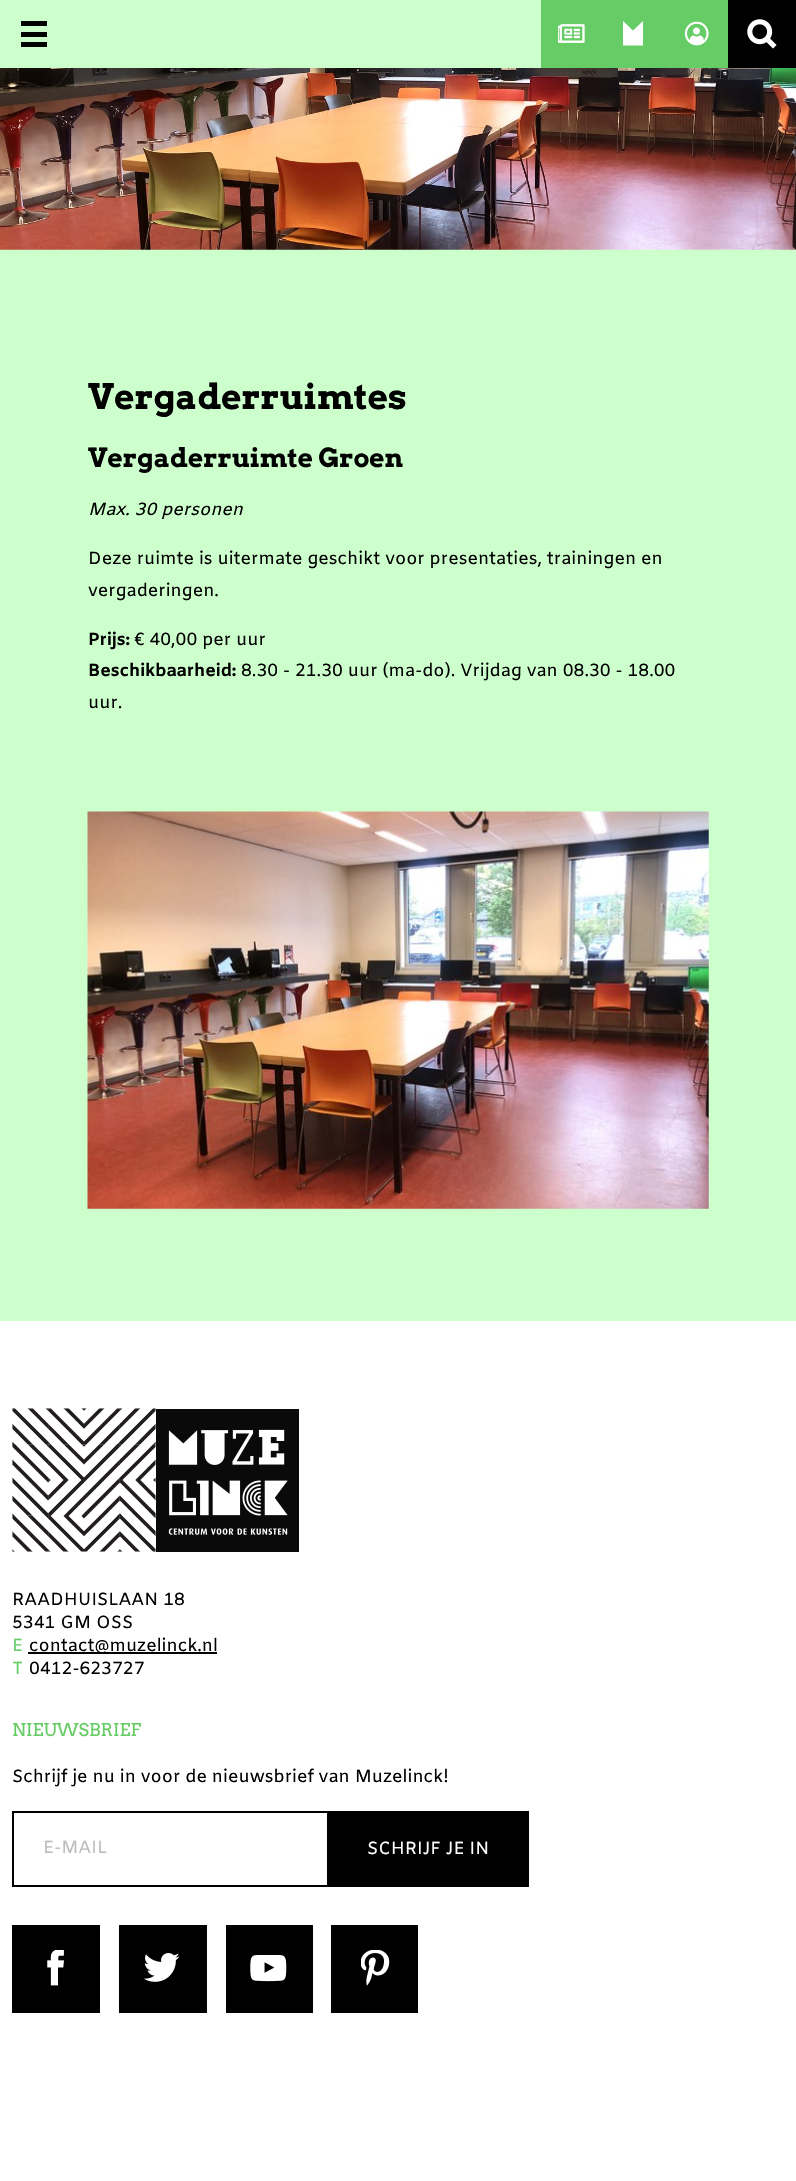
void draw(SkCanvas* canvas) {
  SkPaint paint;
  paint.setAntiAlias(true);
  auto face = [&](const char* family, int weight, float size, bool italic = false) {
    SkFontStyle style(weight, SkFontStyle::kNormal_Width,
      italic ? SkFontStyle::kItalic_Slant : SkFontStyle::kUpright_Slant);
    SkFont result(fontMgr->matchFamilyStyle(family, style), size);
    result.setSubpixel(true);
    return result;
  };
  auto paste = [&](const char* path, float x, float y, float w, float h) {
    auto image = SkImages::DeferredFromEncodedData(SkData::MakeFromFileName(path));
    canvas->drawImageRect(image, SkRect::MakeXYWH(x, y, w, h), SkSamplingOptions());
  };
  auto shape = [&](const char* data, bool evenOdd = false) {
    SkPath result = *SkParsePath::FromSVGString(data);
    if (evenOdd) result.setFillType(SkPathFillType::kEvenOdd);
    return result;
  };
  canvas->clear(0xffffffff);
  {
    const struct { float x, y, w, h; SkColor color; } items[] = {
      {0, 0, 541, 68, 0xffcdffcc},
      {21, 21, 26, 5, 0xff000000},
      {21, 32, 26, 5, 0xff000000},
      {21, 42, 26, 5, 0xff000000},
      {541, 0, 187, 68, 0xff66cc66},
    };
    for (auto [x, y, w, h, color] : items) {
      paint.setColor(color);
      canvas->drawRect(SkRect::MakeXYWH(x, y, w, h), paint);
    }
  }
  paste("img/1.png", 558, 24, 27, 19);
  paint.setColor(0xffffffff);
  canvas->drawPath(shape("M633 30.5L623 21V45.5H643V21Z"), paint);
  paste("img/2.png", 684, 21, 25, 25);
  paint.setColor(0xff000000);
  canvas->drawRect(SkRect::MakeXYWH(728, 0, 68, 68), paint);
  paste("img/3.png", 747, 19, 30, 30);
  paint.setColor(0xffcdffcc);
  canvas->drawRect(SkRect::MakeXYWH(0, 249, 796, 1072), paint);
  paste("img/4.png", 0, 68, 796, 182);
  paste("img/5.png", 87, 811, 622, 398);
  paste("img/6.png", 156, 1409, 143, 143);
  paste("img/7.png", 12, 1408, 144, 144);
  {
    const struct { float x, y, w, h; SkColor color; } items[] = {
      {28, 1652, 189, 2, 0xff000000},
      {12, 1811, 315, 2, 0xff000000},
      {12, 1885, 315, 2, 0xff000000},
      {12, 1811, 2, 76, 0xff000000},
      {327, 1811, 202, 76, 0xff000000},
      {12, 1925, 88, 88, 0xff000000},
    };
    for (auto [x, y, w, h, color] : items) {
      paint.setColor(color);
      canvas->drawRect(SkRect::MakeXYWH(x, y, w, h), paint);
    }
  }
  paste("img/8.png", 47, 1950, 17, 36);
  canvas->drawRect(SkRect::MakeXYWH(119, 1925, 88, 88), paint);
  paste("img/9.png", 144, 1953, 36, 29);
  canvas->drawRect(SkRect::MakeXYWH(226, 1925, 87, 88), paint);
  paste("img/10.png", 250, 1955, 37, 27);
  canvas->drawRect(SkRect::MakeXYWH(331, 1925, 87, 88), paint);
  paste("img/11.png", 361, 1950, 29, 36);
  auto f0 = face("Arvo", 700, 35);
  canvas->drawString("Vergaderruimtes", 88, 409, f0, paint);
  auto f1 = face("Arvo", 700, 26.25f);
  canvas->drawString("Vergaderruimte Groen", 88, 467, f1, paint);
  auto f2 = face("Amiko", 400, 17.5f, true);
  canvas->drawString("Max. 30 personen", 88, 515, f2, paint);
  auto f3 = face("Amiko", 400, 17.5f);
  canvas->drawString("Deze ruimte is uitermate geschikt voor presentaties, trainingen en", 88, 564, f3, paint);
  canvas->drawString("vergaderingen.", 88, 596, f3, paint);
  auto f4 = face("Amiko", 700, 17.5f);
  canvas->drawString("Prijs:", 88, 645, f4, paint);
  canvas->drawString("€ 40,00 per uur", 134, 645, f3, paint);
  canvas->drawString("Beschikbaarheid:", 88, 676, f4, paint);
  {
    const struct { const char* s; float x, y; } items[] = {
      {"8.30 - 21.30 uur (ma-do). Vrijdag van 08.30 - 18.00", 241, 676},
      {"uur.", 88, 708},
      {"RAADHUISLAAN 18", 12, 1605},
      {"5341 GM OSS", 12, 1628},
    };
    for (auto [s, x, y] : items) {
      canvas->drawString(s, x, y, f3, paint);
    }
  }
  paint.setColor(0xff66cc66);
  canvas->drawString("E", 12, 1651, f3, paint);
  paint.setColor(0xff000000);
  canvas->drawString("contact@muzelinck.nl", 29, 1651, f3, paint);
  paint.setColor(0xff66cc66);
  canvas->drawString("T", 12, 1674, f3, paint);
  paint.setColor(0xff000000);
  canvas->drawString("0412-623727", 29, 1674, f3, paint);
  auto f5 = face("Arvo", 400, 17.5f);
  paint.setColor(0xff66cc66);
  canvas->drawString("NIEUWSBRIEF", 12, 1736, f5, paint);
  paint.setColor(0xff000000);
  canvas->drawString("Schrijf je nu in voor de nieuwsbrief van Muzelinck!", 12, 1782, f3, paint);
  paint.setColor(0xffbcbcbc);
  canvas->drawString("E-MAIL", 43, 1853, f3, paint);
  paint.setColor(0xffffffff);
  canvas->drawString("SCHRIJF JE IN", 367, 1854, f3, paint);
}
